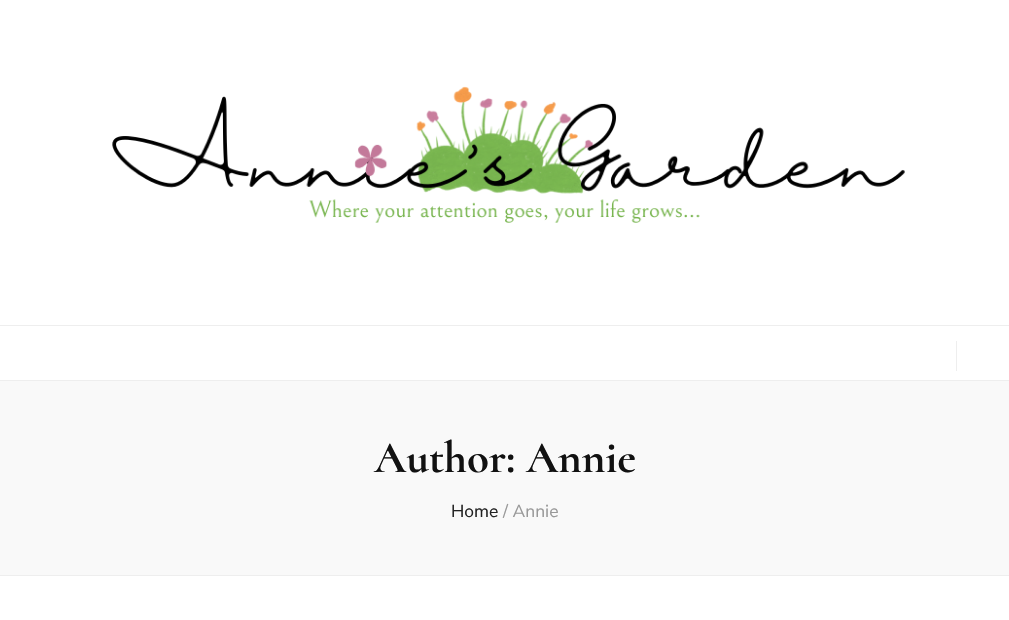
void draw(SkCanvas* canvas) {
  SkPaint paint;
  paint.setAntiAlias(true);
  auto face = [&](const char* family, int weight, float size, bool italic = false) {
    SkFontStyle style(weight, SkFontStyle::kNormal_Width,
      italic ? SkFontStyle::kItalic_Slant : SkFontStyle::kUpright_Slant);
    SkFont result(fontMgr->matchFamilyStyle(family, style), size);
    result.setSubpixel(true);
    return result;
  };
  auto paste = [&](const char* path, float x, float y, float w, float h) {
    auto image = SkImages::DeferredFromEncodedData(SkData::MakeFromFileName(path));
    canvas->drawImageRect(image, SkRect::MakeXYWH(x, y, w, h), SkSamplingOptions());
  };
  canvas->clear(0xffffffff);
  paste("img/1.png", 112, 86, 793, 137);
  {
    const struct { float x, y, w, h; SkColor color; } items[] = {
      {0, 325, 1009, 1, 0xffeeeeee},
      {0, 380, 1009, 1, 0xffeeeeee},
      {956, 341, 1, 30, 0xffeeeeee},
      {0, 381, 1009, 194, 0xfff9f9f9},
      {0, 575, 1009, 1, 0xffeeeeee},
    };
    for (auto [x, y, w, h, color] : items) {
      paint.setColor(color);
      canvas->drawRect(SkRect::MakeXYWH(x, y, w, h), paint);
    }
  }
  auto f0 = face("Cormorant", 700, 45);
  paint.setColor(0xff111111);
  canvas->drawString("Author: Annie", 374, 472, f0, paint);
  auto f1 = face("Nunito Sans", 400, 17.5f);
  paint.setColor(0xff222222);
  canvas->drawString("Home", 451, 517, f1, paint);
  paint.setColor(0xff999999);
  canvas->drawString("/ Annie", 503, 517, f1, paint);
}
